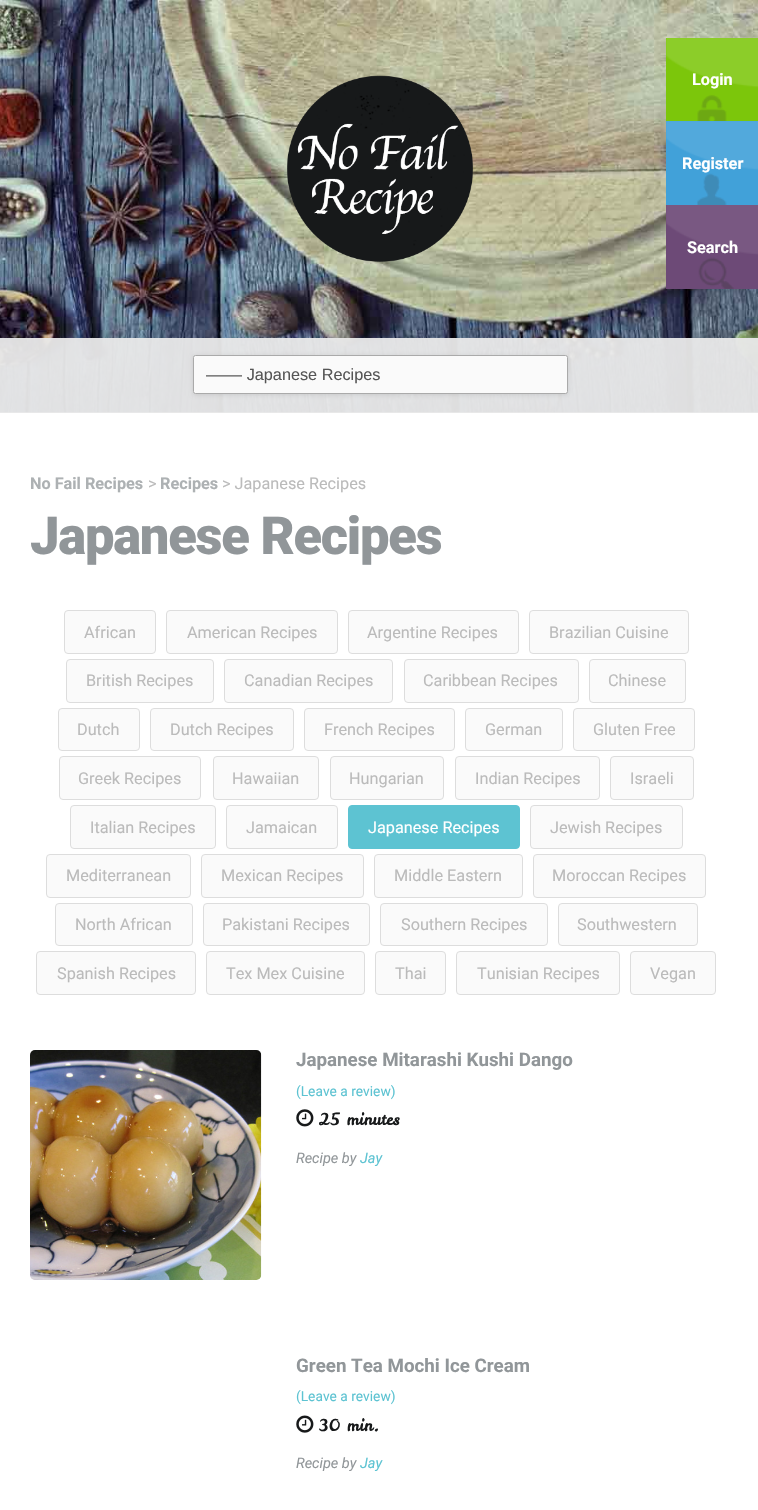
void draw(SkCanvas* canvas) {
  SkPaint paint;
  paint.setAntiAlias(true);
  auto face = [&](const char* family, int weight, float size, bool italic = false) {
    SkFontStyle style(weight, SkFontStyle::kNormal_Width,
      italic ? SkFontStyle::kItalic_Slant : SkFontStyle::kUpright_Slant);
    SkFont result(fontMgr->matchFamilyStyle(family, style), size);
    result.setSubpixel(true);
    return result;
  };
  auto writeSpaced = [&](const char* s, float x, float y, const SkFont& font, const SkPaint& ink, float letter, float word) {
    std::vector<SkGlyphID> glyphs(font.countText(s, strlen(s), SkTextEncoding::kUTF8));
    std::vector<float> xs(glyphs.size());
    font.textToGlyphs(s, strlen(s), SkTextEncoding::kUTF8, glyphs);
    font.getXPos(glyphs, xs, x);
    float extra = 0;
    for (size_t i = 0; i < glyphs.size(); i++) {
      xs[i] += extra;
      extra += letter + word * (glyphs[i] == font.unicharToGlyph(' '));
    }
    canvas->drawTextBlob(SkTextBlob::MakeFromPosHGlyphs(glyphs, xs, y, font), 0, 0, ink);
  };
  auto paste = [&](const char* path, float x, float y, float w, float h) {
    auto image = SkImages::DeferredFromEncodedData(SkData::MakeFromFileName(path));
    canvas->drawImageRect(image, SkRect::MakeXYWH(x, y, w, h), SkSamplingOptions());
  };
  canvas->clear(0xffffffff);
  paste("img/1.png", 0, 0, 758, 413);
  paste("img/2.png", 287, 75, 186, 187);
  paint.setColor(0xff7cc60b);
  canvas->drawRect(SkRect::MakeXYWH(666, 38, 92, 83), paint);
  paste("img/3.png", 666, 37, 92, 84);
  paint.setColor(0xff41a1d9);
  canvas->drawRect(SkRect::MakeXYWH(666, 121, 92, 84), paint);
  paste("img/4.png", 666, 121, 92, 84);
  paint.setColor(0xff6d4a77);
  canvas->drawRect(SkRect::MakeXYWH(666, 205, 92, 84), paint);
  paste("img/5.png", 666, 205, 92, 84);
  paint.setColor(0xf2e9e9e9);
  canvas->drawRect(SkRect::MakeXYWH(0, 338, 758, 75), paint);
  paint.setColor(0x1a000000);
  paint.setMaskFilter(SkMaskFilter::MakeBlur(kNormal_SkBlurStyle, 2));
  canvas->drawRoundRect(SkRect::MakeXYWH(193, 356, 375, 39), 2.5f, 2.5f, paint);
  paint.setMaskFilter(nullptr);
  paint.setColor(0xfffafafa);
  canvas->drawRoundRect(SkRect::MakeXYWH(193.5f, 355.5f, 374, 38), 2, 2, paint);
  paint.setStroke(true);
  paint.setStrokeWidth(1);
  paint.setColor(0xffaaaaaa);
  canvas->drawRoundRect(SkRect::MakeXYWH(193.5f, 355.5f, 374, 38), 2, 2, paint);
  paint.setStroke(false);
  paint.setColor(0xfffafafa);
  canvas->drawRoundRect(SkRect::MakeXYWH(64.5f, 610.5f, 91, 43), 3.5f, 3.5f, paint);
  paint.setStroke(true);
  paint.setColor(0xffdddddd);
  canvas->drawRoundRect(SkRect::MakeXYWH(64.5f, 610.5f, 91, 43), 3.5f, 3.5f, paint);
  paint.setStroke(false);
  paint.setColor(0xfffafafa);
  canvas->drawRoundRect(SkRect::MakeXYWH(166.5f, 610.5f, 171, 43), 3.5f, 3.5f, paint);
  paint.setStroke(true);
  paint.setColor(0xffdddddd);
  canvas->drawRoundRect(SkRect::MakeXYWH(166.5f, 610.5f, 171, 43), 3.5f, 3.5f, paint);
  paint.setStroke(false);
  paint.setColor(0xfffafafa);
  canvas->drawRoundRect(SkRect::MakeXYWH(348.5f, 610.5f, 170, 43), 3.5f, 3.5f, paint);
  paint.setStroke(true);
  paint.setColor(0xffdddddd);
  canvas->drawRoundRect(SkRect::MakeXYWH(348.5f, 610.5f, 170, 43), 3.5f, 3.5f, paint);
  paint.setStroke(false);
  paint.setColor(0xfffafafa);
  canvas->drawRoundRect(SkRect::MakeXYWH(529.5f, 610.5f, 159, 43), 3.5f, 3.5f, paint);
  paint.setStroke(true);
  paint.setColor(0xffdddddd);
  canvas->drawRoundRect(SkRect::MakeXYWH(529.5f, 610.5f, 159, 43), 3.5f, 3.5f, paint);
  paint.setStroke(false);
  paint.setColor(0xfffafafa);
  canvas->drawRoundRect(SkRect::MakeXYWH(66.5f, 659.5f, 147, 43), 3.5f, 3.5f, paint);
  paint.setStroke(true);
  paint.setColor(0xffdddddd);
  canvas->drawRoundRect(SkRect::MakeXYWH(66.5f, 659.5f, 147, 43), 3.5f, 3.5f, paint);
  paint.setStroke(false);
  paint.setColor(0xfffafafa);
  canvas->drawRoundRect(SkRect::MakeXYWH(224.5f, 659.5f, 168, 43), 3.5f, 3.5f, paint);
  paint.setStroke(true);
  paint.setColor(0xffdddddd);
  canvas->drawRoundRect(SkRect::MakeXYWH(224.5f, 659.5f, 168, 43), 3.5f, 3.5f, paint);
  paint.setStroke(false);
  paint.setColor(0xfffafafa);
  canvas->drawRoundRect(SkRect::MakeXYWH(404.5f, 659.5f, 174, 43), 3.5f, 3.5f, paint);
  paint.setStroke(true);
  paint.setColor(0xffdddddd);
  canvas->drawRoundRect(SkRect::MakeXYWH(404.5f, 659.5f, 174, 43), 3.5f, 3.5f, paint);
  paint.setStroke(false);
  paint.setColor(0xfffafafa);
  canvas->drawRoundRect(SkRect::MakeXYWH(589.5f, 659.5f, 96, 43), 3.5f, 3.5f, paint);
  paint.setStroke(true);
  paint.setColor(0xffdddddd);
  canvas->drawRoundRect(SkRect::MakeXYWH(589.5f, 659.5f, 96, 43), 3.5f, 3.5f, paint);
  paint.setStroke(false);
  paint.setColor(0xfffafafa);
  canvas->drawRoundRect(SkRect::MakeXYWH(58.5f, 708.5f, 81, 42), 3.5f, 3.5f, paint);
  paint.setStroke(true);
  paint.setColor(0xffdddddd);
  canvas->drawRoundRect(SkRect::MakeXYWH(58.5f, 708.5f, 81, 42), 3.5f, 3.5f, paint);
  paint.setStroke(false);
  paint.setColor(0xfffafafa);
  canvas->drawRoundRect(SkRect::MakeXYWH(150.5f, 708.5f, 143, 42), 3.5f, 3.5f, paint);
  paint.setStroke(true);
  paint.setColor(0xffdddddd);
  canvas->drawRoundRect(SkRect::MakeXYWH(150.5f, 708.5f, 143, 42), 3.5f, 3.5f, paint);
  paint.setStroke(false);
  paint.setColor(0xfffafafa);
  canvas->drawRoundRect(SkRect::MakeXYWH(304.5f, 708.5f, 150, 42), 3.5f, 3.5f, paint);
  paint.setStroke(true);
  paint.setColor(0xffdddddd);
  canvas->drawRoundRect(SkRect::MakeXYWH(304.5f, 708.5f, 150, 42), 3.5f, 3.5f, paint);
  paint.setStroke(false);
  paint.setColor(0xfffafafa);
  canvas->drawRoundRect(SkRect::MakeXYWH(465.5f, 708.5f, 97, 42), 3.5f, 3.5f, paint);
  paint.setStroke(true);
  paint.setColor(0xffdddddd);
  canvas->drawRoundRect(SkRect::MakeXYWH(465.5f, 708.5f, 97, 42), 3.5f, 3.5f, paint);
  paint.setStroke(false);
  paint.setColor(0xfffafafa);
  canvas->drawRoundRect(SkRect::MakeXYWH(573.5f, 708.5f, 121, 42), 3.5f, 3.5f, paint);
  paint.setStroke(true);
  paint.setColor(0xffdddddd);
  canvas->drawRoundRect(SkRect::MakeXYWH(573.5f, 708.5f, 121, 42), 3.5f, 3.5f, paint);
  paint.setStroke(false);
  paint.setColor(0xfffafafa);
  canvas->drawRoundRect(SkRect::MakeXYWH(59.5f, 756.5f, 141, 43), 3.5f, 3.5f, paint);
  paint.setStroke(true);
  paint.setColor(0xffdddddd);
  canvas->drawRoundRect(SkRect::MakeXYWH(59.5f, 756.5f, 141, 43), 3.5f, 3.5f, paint);
  paint.setStroke(false);
  paint.setColor(0xfffafafa);
  canvas->drawRoundRect(SkRect::MakeXYWH(213.5f, 756.5f, 105, 43), 3.5f, 3.5f, paint);
  paint.setStroke(true);
  paint.setColor(0xffdddddd);
  canvas->drawRoundRect(SkRect::MakeXYWH(213.5f, 756.5f, 105, 43), 3.5f, 3.5f, paint);
  paint.setStroke(false);
  paint.setColor(0xfffafafa);
  canvas->drawRoundRect(SkRect::MakeXYWH(330.5f, 756.5f, 113, 43), 3.5f, 3.5f, paint);
  paint.setStroke(true);
  paint.setColor(0xffdddddd);
  canvas->drawRoundRect(SkRect::MakeXYWH(330.5f, 756.5f, 113, 43), 3.5f, 3.5f, paint);
  paint.setStroke(false);
  paint.setColor(0xfffafafa);
  canvas->drawRoundRect(SkRect::MakeXYWH(455.5f, 756.5f, 144, 43), 3.5f, 3.5f, paint);
  paint.setStroke(true);
  paint.setColor(0xffdddddd);
  canvas->drawRoundRect(SkRect::MakeXYWH(455.5f, 756.5f, 144, 43), 3.5f, 3.5f, paint);
  paint.setStroke(false);
  paint.setColor(0xfffafafa);
  canvas->drawRoundRect(SkRect::MakeXYWH(610.5f, 756.5f, 83, 43), 3.5f, 3.5f, paint);
  paint.setStroke(true);
  paint.setColor(0xffdddddd);
  canvas->drawRoundRect(SkRect::MakeXYWH(610.5f, 756.5f, 83, 43), 3.5f, 3.5f, paint);
  paint.setStroke(false);
  paint.setColor(0xfffafafa);
  canvas->drawRoundRect(SkRect::MakeXYWH(70.5f, 805.5f, 145, 43), 3.5f, 3.5f, paint);
  paint.setStroke(true);
  paint.setColor(0xffdddddd);
  canvas->drawRoundRect(SkRect::MakeXYWH(70.5f, 805.5f, 145, 43), 3.5f, 3.5f, paint);
  paint.setStroke(false);
  paint.setColor(0xfffafafa);
  canvas->drawRoundRect(SkRect::MakeXYWH(226.5f, 805.5f, 111, 43), 3.5f, 3.5f, paint);
  paint.setStroke(true);
  paint.setColor(0xffdddddd);
  canvas->drawRoundRect(SkRect::MakeXYWH(226.5f, 805.5f, 111, 43), 3.5f, 3.5f, paint);
  paint.setStroke(false);
  paint.setColor(0xff5dc3d2);
  canvas->drawRoundRect(SkRect::MakeXYWH(348.5f, 805.5f, 171, 43), 3.5f, 3.5f, paint);
  paint.setStroke(true);
  canvas->drawRoundRect(SkRect::MakeXYWH(348.5f, 805.5f, 171, 43), 3.5f, 3.5f, paint);
  paint.setStroke(false);
  paint.setColor(0xfffafafa);
  canvas->drawRoundRect(SkRect::MakeXYWH(530.5f, 805.5f, 152, 43), 3.5f, 3.5f, paint);
  paint.setStroke(true);
  paint.setColor(0xffdddddd);
  canvas->drawRoundRect(SkRect::MakeXYWH(530.5f, 805.5f, 152, 43), 3.5f, 3.5f, paint);
  paint.setStroke(false);
  paint.setColor(0xfffafafa);
  canvas->drawRoundRect(SkRect::MakeXYWH(46.5f, 854.5f, 144, 43), 3.5f, 3.5f, paint);
  paint.setStroke(true);
  paint.setColor(0xffdddddd);
  canvas->drawRoundRect(SkRect::MakeXYWH(46.5f, 854.5f, 144, 43), 3.5f, 3.5f, paint);
  paint.setStroke(false);
  paint.setColor(0xfffafafa);
  canvas->drawRoundRect(SkRect::MakeXYWH(201.5f, 854.5f, 162, 43), 3.5f, 3.5f, paint);
  paint.setStroke(true);
  paint.setColor(0xffdddddd);
  canvas->drawRoundRect(SkRect::MakeXYWH(201.5f, 854.5f, 162, 43), 3.5f, 3.5f, paint);
  paint.setStroke(false);
  paint.setColor(0xfffafafa);
  canvas->drawRoundRect(SkRect::MakeXYWH(374.5f, 854.5f, 148, 43), 3.5f, 3.5f, paint);
  paint.setStroke(true);
  paint.setColor(0xffdddddd);
  canvas->drawRoundRect(SkRect::MakeXYWH(374.5f, 854.5f, 148, 43), 3.5f, 3.5f, paint);
  paint.setStroke(false);
  paint.setColor(0xfffafafa);
  canvas->drawRoundRect(SkRect::MakeXYWH(533.5f, 854.5f, 172, 43), 3.5f, 3.5f, paint);
  paint.setStroke(true);
  paint.setColor(0xffdddddd);
  canvas->drawRoundRect(SkRect::MakeXYWH(533.5f, 854.5f, 172, 43), 3.5f, 3.5f, paint);
  paint.setStroke(false);
  paint.setColor(0xfffafafa);
  canvas->drawRoundRect(SkRect::MakeXYWH(55.5f, 903.5f, 137, 42), 3.5f, 3.5f, paint);
  paint.setStroke(true);
  paint.setColor(0xffdddddd);
  canvas->drawRoundRect(SkRect::MakeXYWH(55.5f, 903.5f, 137, 42), 3.5f, 3.5f, paint);
  paint.setStroke(false);
  paint.setColor(0xfffafafa);
  canvas->drawRoundRect(SkRect::MakeXYWH(203.5f, 903.5f, 166, 42), 3.5f, 3.5f, paint);
  paint.setStroke(true);
  paint.setColor(0xffdddddd);
  canvas->drawRoundRect(SkRect::MakeXYWH(203.5f, 903.5f, 166, 42), 3.5f, 3.5f, paint);
  paint.setStroke(false);
  paint.setColor(0xfffafafa);
  canvas->drawRoundRect(SkRect::MakeXYWH(380.5f, 903.5f, 167, 42), 3.5f, 3.5f, paint);
  paint.setStroke(true);
  paint.setColor(0xffdddddd);
  canvas->drawRoundRect(SkRect::MakeXYWH(380.5f, 903.5f, 167, 42), 3.5f, 3.5f, paint);
  paint.setStroke(false);
  paint.setColor(0xfffafafa);
  canvas->drawRoundRect(SkRect::MakeXYWH(558.5f, 903.5f, 139, 42), 3.5f, 3.5f, paint);
  paint.setStroke(true);
  paint.setColor(0xffdddddd);
  canvas->drawRoundRect(SkRect::MakeXYWH(558.5f, 903.5f, 139, 42), 3.5f, 3.5f, paint);
  paint.setStroke(false);
  paint.setColor(0xfffafafa);
  canvas->drawRoundRect(SkRect::MakeXYWH(36.5f, 951.5f, 159, 43), 3.5f, 3.5f, paint);
  paint.setStroke(true);
  paint.setColor(0xffdddddd);
  canvas->drawRoundRect(SkRect::MakeXYWH(36.5f, 951.5f, 159, 43), 3.5f, 3.5f, paint);
  paint.setStroke(false);
  paint.setColor(0xfffafafa);
  canvas->drawRoundRect(SkRect::MakeXYWH(206.5f, 951.5f, 158, 43), 3.5f, 3.5f, paint);
  paint.setStroke(true);
  paint.setColor(0xffdddddd);
  canvas->drawRoundRect(SkRect::MakeXYWH(206.5f, 951.5f, 158, 43), 3.5f, 3.5f, paint);
  paint.setStroke(false);
  paint.setColor(0xfffafafa);
  canvas->drawRoundRect(SkRect::MakeXYWH(375.5f, 951.5f, 70, 43), 3.5f, 3.5f, paint);
  paint.setStroke(true);
  paint.setColor(0xffdddddd);
  canvas->drawRoundRect(SkRect::MakeXYWH(375.5f, 951.5f, 70, 43), 3.5f, 3.5f, paint);
  paint.setStroke(false);
  paint.setColor(0xfffafafa);
  canvas->drawRoundRect(SkRect::MakeXYWH(456.5f, 951.5f, 163, 43), 3.5f, 3.5f, paint);
  paint.setStroke(true);
  paint.setColor(0xffdddddd);
  canvas->drawRoundRect(SkRect::MakeXYWH(456.5f, 951.5f, 163, 43), 3.5f, 3.5f, paint);
  paint.setStroke(false);
  paint.setColor(0xfffafafa);
  canvas->drawRoundRect(SkRect::MakeXYWH(630.5f, 951.5f, 85, 43), 3.5f, 3.5f, paint);
  paint.setStroke(true);
  paint.setColor(0xffdddddd);
  canvas->drawRoundRect(SkRect::MakeXYWH(630.5f, 951.5f, 85, 43), 3.5f, 3.5f, paint);
  paste("img/6.png", 30, 1050, 232, 230);
  paste("img/7.png", 296, 1109, 18, 18);
  paste("img/8.png", 296, 1415, 18, 18);
  auto f0 = face("Roboto", 700, 16.25f);
  paint.setStroke(false);
  paint.setColor(0xffffffff);
  {
    const struct { const char* s; float x, y; } items[] = {
      {"Login", 692, 85},
      {"Register", 682, 169},
      {"Search", 687, 253},
    };
    for (auto [s, x, y] : items) {
      canvas->drawString(s, x, y, f0, paint);
    }
  }
  auto f1 = face("Liberation Sans", 400, 16.25f);
  paint.setColor(0xff555555);
  canvas->drawString("–––– Japanese Recipes", 206, 380, f1, paint);
  paint.setColor(0xffadb1b3);
  canvas->drawString("No Fail Recipes", 30, 489, f0, paint);
  auto f2 = face("Roboto", 400, 16.25f);
  paint.setColor(0xffbbbbbb);
  canvas->drawString(">", 148, 489, f2, paint);
  paint.setColor(0xffadb1b3);
  canvas->drawString("Recipes", 160, 489, f0, paint);
  paint.setColor(0xffbbbbbb);
  canvas->drawString("> Japanese Recipes", 222, 489, f2, paint);
  auto f3 = face("Roboto", 900, 52.5f);
  paint.setColor(0xff919699);
  writeSpaced("Japanese Recipes", 30, 554, f3, paint, -1.25f, 0);
  paint.setColor(0xffbbbbbb);
  {
    const struct { const char* s; float x, y; } items[] = {
      {"African", 84, 638},
      {"American Recipes", 187, 638},
      {"Argentine Recipes", 367, 638},
      {"Brazilian Cuisine", 549, 638},
      {"British Recipes", 86, 686},
      {"Canadian Recipes", 244, 686},
      {"Caribbean Recipes", 423, 686},
      {"Chinese", 608, 686},
      {"Dutch", 77, 735},
      {"Dutch Recipes", 170, 735},
      {"French Recipes", 324, 735},
      {"German", 485, 735},
      {"Gluten Free", 593, 735},
      {"Greek Recipes", 78, 784},
      {"Hawaiian", 232, 784},
      {"Hungarian", 349, 784},
      {"Indian Recipes", 475, 784},
      {"Israeli", 630, 784},
      {"Italian Recipes", 90, 833},
      {"Jamaican", 246, 833},
    };
    for (auto [s, x, y] : items) {
      canvas->drawString(s, x, y, f2, paint);
    }
  }
  paint.setColor(0xffffffff);
  canvas->drawString("Japanese Recipes", 368, 833, f2, paint);
  paint.setColor(0xffbbbbbb);
  {
    const struct { const char* s; float x, y; } items[] = {
      {"Jewish Recipes", 550, 833},
      {"Mediterranean", 66, 881},
      {"Mexican Recipes", 221, 881},
      {"Middle Eastern", 394, 881},
      {"Moroccan Recipes", 552, 881},
      {"North African", 75, 930},
      {"Pakistani Recipes", 222, 930},
      {"Southern Recipes", 401, 930},
      {"Southwestern", 577, 930},
      {"Spanish Recipes", 57, 979},
      {"Tex Mex Cuisine", 226, 979},
      {"Thai", 395, 979},
      {"Tunisian Recipes", 477, 979},
      {"Vegan", 650, 979},
    };
    for (auto [s, x, y] : items) {
      canvas->drawString(s, x, y, f2, paint);
    }
  }
  auto f4 = face("Roboto", 700, 18.75f);
  paint.setColor(0xff919699);
  canvas->drawString("Japanese Mitarashi Kushi Dango", 296, 1066, f4, paint);
  auto f5 = face("Roboto", 400, 13.75f);
  paint.setColor(0xff5dc3d2);
  canvas->drawString("(Leave a review)", 296, 1096, f5, paint);
  auto f6 = face("Leckerli One", 400, 16.25f);
  paint.setColor(0xff17191a);
  canvas->drawString("25 minutes", 319, 1125, f6, paint);
  auto f7 = face("Roboto", 400, 14.5f, true);
  paint.setColor(0xff919699);
  canvas->drawString("Recipe by", 296, 1163, f7, paint);
  paint.setColor(0xff5dc3d2);
  canvas->drawString("Jay", 360, 1163, f7, paint);
  paint.setColor(0xff919699);
  canvas->drawString("Green Tea Mochi Ice Cream", 296, 1372, f4, paint);
  paint.setColor(0xff5dc3d2);
  canvas->drawString("(Leave a review)", 296, 1401, f5, paint);
  paint.setColor(0xff17191a);
  canvas->drawString("30 min.", 319, 1431, f6, paint);
  paint.setColor(0xff919699);
  canvas->drawString("Recipe by", 296, 1468, f7, paint);
  paint.setColor(0xff5dc3d2);
  canvas->drawString("Jay", 360, 1468, f7, paint);
}
